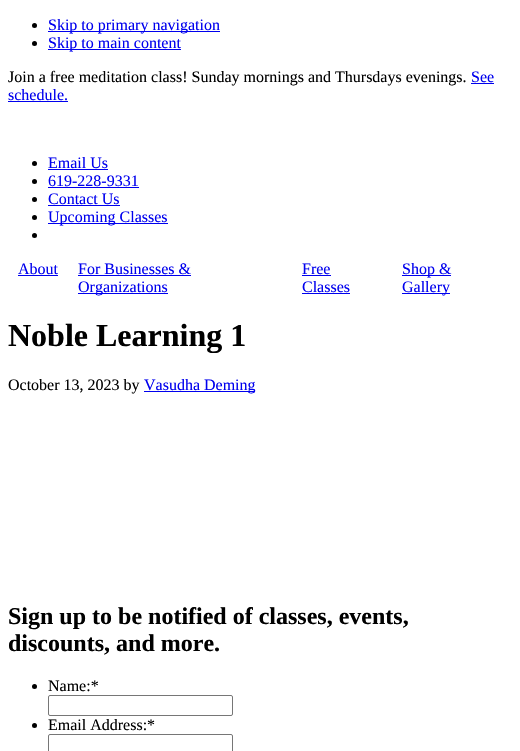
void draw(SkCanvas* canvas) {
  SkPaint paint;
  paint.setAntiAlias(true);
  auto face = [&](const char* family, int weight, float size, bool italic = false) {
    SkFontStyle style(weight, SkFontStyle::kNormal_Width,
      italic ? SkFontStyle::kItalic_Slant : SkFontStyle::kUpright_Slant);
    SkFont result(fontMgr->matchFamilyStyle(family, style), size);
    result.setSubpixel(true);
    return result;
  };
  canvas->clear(0xffffffff);
  paint.setColor(0xff000000);
  canvas->drawCircle(34.5f, 25.5f, 2.5f, paint);
  paint.setColor(0xff0000ee);
  canvas->drawRect(SkRect::MakeXYWH(48, 31, 172, 1), paint);
  paint.setColor(0xff000000);
  canvas->drawCircle(34.5f, 43.5f, 2.5f, paint);
  {
    const struct { float x, y, w, h; SkColor color; } items[] = {
      {48, 49, 133, 1, 0xff0000ee},
      {471, 83, 23, 1, 0xff0000ee},
      {8, 101, 60, 1, 0xff0000ee},
    };
    for (auto [x, y, w, h, color] : items) {
      paint.setColor(color);
      canvas->drawRect(SkRect::MakeXYWH(x, y, w, h), paint);
    }
  }
  paint.setColor(0xff000000);
  canvas->drawCircle(34.5f, 163.5f, 2.5f, paint);
  paint.setColor(0xff0000ee);
  canvas->drawRect(SkRect::MakeXYWH(48, 169, 60, 1), paint);
  paint.setColor(0xff000000);
  canvas->drawCircle(34.5f, 181.5f, 2.5f, paint);
  paint.setColor(0xff0000ee);
  canvas->drawRect(SkRect::MakeXYWH(48, 187, 91, 1), paint);
  paint.setColor(0xff000000);
  canvas->drawCircle(34.5f, 199.5f, 2.5f, paint);
  paint.setColor(0xff0000ee);
  canvas->drawRect(SkRect::MakeXYWH(48, 205, 72, 1), paint);
  paint.setColor(0xff000000);
  canvas->drawCircle(34.5f, 217.5f, 2.5f, paint);
  paint.setColor(0xff0000ee);
  canvas->drawRect(SkRect::MakeXYWH(48, 223, 120, 1), paint);
  paint.setColor(0xff000000);
  canvas->drawCircle(34.5f, 235.5f, 2.5f, paint);
  {
    const struct { float x, y, w, h; SkColor color; } items[] = {
      {18, 275, 40, 1, 0xff0000ee},
      {78, 275, 113, 1, 0xff0000ee},
      {78, 293, 90, 1, 0xff0000ee},
      {302, 275, 29, 1, 0xff0000ee},
      {302, 293, 48, 1, 0xff0000ee},
      {402, 275, 49, 1, 0xff0000ee},
      {402, 293, 48, 1, 0xff0000ee},
      {144, 391, 111, 1, 0xff0000ee},
    };
    for (auto [x, y, w, h, color] : items) {
      paint.setColor(color);
      canvas->drawRect(SkRect::MakeXYWH(x, y, w, h), paint);
    }
  }
  paint.setColor(0xff000000);
  canvas->drawCircle(34.5f, 686.5f, 2.5f, paint);
  paint.setStroke(true);
  paint.setStrokeWidth(1);
  paint.setColor(0xff767676);
  canvas->drawRoundRect(SkRect::MakeXYWH(48.5f, 695.5f, 184, 20), 1.5f, 1.5f, paint);
  paint.setStroke(false);
  paint.setColor(0xff000000);
  canvas->drawCircle(34.5f, 725.5f, 2.5f, paint);
  paint.setStroke(true);
  paint.setColor(0xff767676);
  canvas->drawRoundRect(SkRect::MakeXYWH(48.5f, 734.5f, 184, 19), 1.5f, 1.5f, paint);
  auto f0 = face("Liberation Serif", 400, 16);
  paint.setStroke(false);
  paint.setColor(0xff0000ee);
  canvas->drawString("Skip to primary navigation", 48, 30, f0, paint);
  canvas->drawString("Skip to main content", 48, 48, f0, paint);
  paint.setColor(0xff000000);
  canvas->drawString("Join a free meditation class! Sunday mornings and Thursdays evenings.", 8, 82, f0, paint);
  paint.setColor(0xff0000ee);
  {
    const struct { const char* s; float x, y; } items[] = {
      {"See", 471, 82},
      {"schedule.", 8, 100},
      {"Email Us", 48, 168},
      {"619-228-9331", 48, 186},
      {"Contact Us", 48, 204},
      {"Upcoming Classes", 48, 222},
      {"About", 18, 274},
      {"For Businesses &", 78, 274},
      {"Organizations", 78, 292},
      {"Free", 302, 274},
      {"Classes", 302, 292},
      {"Shop &", 402, 274},
      {"Gallery", 402, 292},
    };
    for (auto [s, x, y] : items) {
      canvas->drawString(s, x, y, f0, paint);
    }
  }
  auto f1 = face("Liberation Serif", 700, 32);
  paint.setColor(0xff000000);
  canvas->drawString("Noble Learning 1", 8, 346, f1, paint);
  canvas->drawString("October 13, 2023 by", 8, 390, f0, paint);
  paint.setColor(0xff0000ee);
  canvas->drawString("Vasudha Deming", 144, 390, f0, paint);
  auto f2 = face("Liberation Serif", 700, 24);
  paint.setColor(0xff000000);
  canvas->drawString("Sign up to be notified of classes, events,", 8, 624, f2, paint);
  canvas->drawString("discounts, and more.", 8, 651, f2, paint);
  canvas->drawString("Name:*", 48, 691, f0, paint);
  canvas->drawString("Email Address:*", 48, 730, f0, paint);
}
